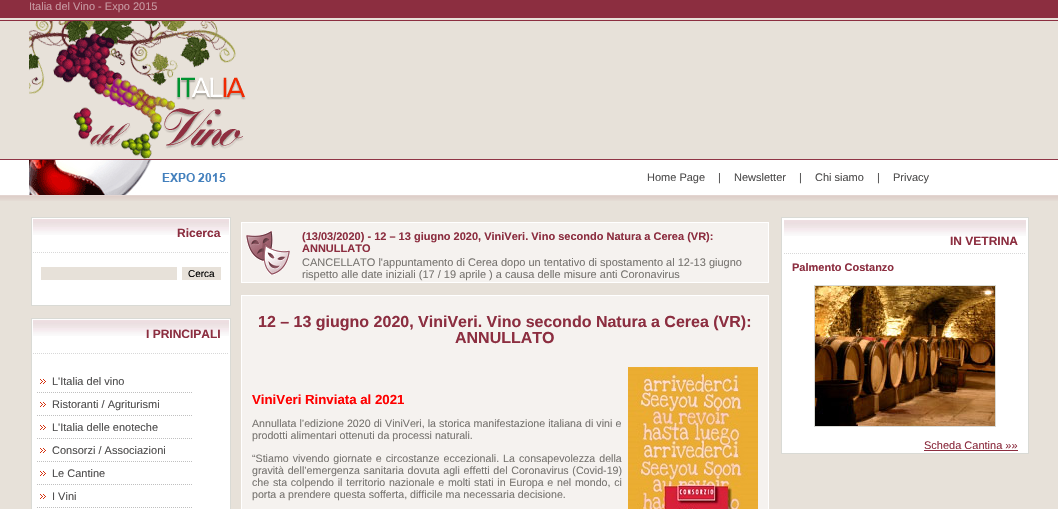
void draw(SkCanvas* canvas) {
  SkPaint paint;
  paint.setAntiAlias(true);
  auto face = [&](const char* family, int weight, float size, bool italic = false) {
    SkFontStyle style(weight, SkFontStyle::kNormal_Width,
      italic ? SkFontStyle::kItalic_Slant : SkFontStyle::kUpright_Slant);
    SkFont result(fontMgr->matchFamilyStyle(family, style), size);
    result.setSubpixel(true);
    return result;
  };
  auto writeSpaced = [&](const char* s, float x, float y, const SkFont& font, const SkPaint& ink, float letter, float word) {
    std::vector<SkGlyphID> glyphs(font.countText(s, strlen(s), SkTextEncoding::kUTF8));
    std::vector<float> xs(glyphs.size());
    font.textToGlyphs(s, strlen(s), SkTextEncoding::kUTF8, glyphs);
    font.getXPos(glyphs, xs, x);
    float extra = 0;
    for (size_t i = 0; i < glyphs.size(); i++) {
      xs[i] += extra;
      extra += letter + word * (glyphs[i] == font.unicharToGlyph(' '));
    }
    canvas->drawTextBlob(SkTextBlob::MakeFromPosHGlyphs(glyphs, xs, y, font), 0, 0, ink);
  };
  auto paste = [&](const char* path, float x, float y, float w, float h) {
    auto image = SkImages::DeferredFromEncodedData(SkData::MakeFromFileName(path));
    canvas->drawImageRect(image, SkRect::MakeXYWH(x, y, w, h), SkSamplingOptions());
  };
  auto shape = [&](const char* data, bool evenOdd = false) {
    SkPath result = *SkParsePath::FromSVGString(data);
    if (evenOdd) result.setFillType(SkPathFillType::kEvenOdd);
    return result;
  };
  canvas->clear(0xffe7e1d9);
  paste("img/1.png", 0, 0, 1058, 201);
  paste("img/2.png", 29, 21, 217, 138);
  paste("img/3.png", 29, 160, 197, 35);
  paint.setColor(0xffffffff);
  canvas->drawRect(SkRect::MakeXYWH(31.5f, 217.5f, 199, 88), paint);
  paint.setStroke(true);
  paint.setStrokeWidth(1);
  paint.setColor(0xffd9dad5);
  canvas->drawRect(SkRect::MakeXYWH(31.5f, 217.5f, 199, 88), paint);
  paste("img/4.png", 33, 219, 196, 16);
  paint.setColor(0xffd8d8d8);
  paint.setPathEffect(SkDashPathEffect::Make({{1, 1}}, 0));
  canvas->drawPath(shape("M33 252.5H229"), paint);
  paint.setPathEffect(nullptr);
  paint.setStroke(false);
  paint.setColor(0xffe7e1d9);
  canvas->drawRect(SkRect::MakeXYWH(41, 267, 136, 13), paint);
  canvas->drawRect(SkRect::MakeXYWH(182, 267, 39, 13), paint);
  paint.setColor(0xffffffff);
  canvas->drawRect(SkRect::MakeXYWH(31.5f, 318.5f, 199, 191), paint);
  paint.setStroke(true);
  paint.setColor(0xffd9dad5);
  canvas->drawRect(SkRect::MakeXYWH(31.5f, 318.5f, 199, 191), paint);
  paste("img/4.png", 33, 320, 196, 16);
  paint.setColor(0xffd8d8d8);
  paint.setPathEffect(SkDashPathEffect::Make({{1, 1}}, 0));
  canvas->drawPath(shape("M33 353.5H229"), paint);
  paint.setPathEffect(nullptr);
  paint.setColor(0xffc0c0c0);
  paint.setPathEffect(SkDashPathEffect::Make({{1, 1}}, 0));
  canvas->drawPath(shape("M37 392.5H192"), paint);
  paint.setPathEffect(nullptr);
  paste("img/5.png", 40, 379, 6, 5);
  paint.setPathEffect(SkDashPathEffect::Make({{1, 1}}, 0));
  canvas->drawPath(shape("M37 415.5H192"), paint);
  paint.setPathEffect(nullptr);
  paste("img/5.png", 40, 402, 6, 5);
  paint.setPathEffect(SkDashPathEffect::Make({{1, 1}}, 0));
  canvas->drawPath(shape("M37 438.5H192"), paint);
  paint.setPathEffect(nullptr);
  paste("img/5.png", 40, 425, 6, 5);
  paint.setPathEffect(SkDashPathEffect::Make({{1, 1}}, 0));
  canvas->drawPath(shape("M37 461.5H192"), paint);
  paint.setPathEffect(nullptr);
  paste("img/5.png", 40, 448, 6, 5);
  paint.setPathEffect(SkDashPathEffect::Make({{1, 1}}, 0));
  canvas->drawPath(shape("M37 484.5H192"), paint);
  paint.setPathEffect(nullptr);
  paste("img/5.png", 40, 471, 6, 5);
  paint.setPathEffect(SkDashPathEffect::Make({{1, 1}}, 0));
  canvas->drawPath(shape("M37 507.5H192"), paint);
  paint.setPathEffect(nullptr);
  paste("img/5.png", 40, 494, 6, 5);
  paint.setStroke(false);
  paint.setColor(0xfff5f2ef);
  canvas->drawRect(SkRect::MakeXYWH(241.5f, 222.5f, 527, 60), paint);
  paint.setStroke(true);
  paint.setColor(0xffffffff);
  canvas->drawRect(SkRect::MakeXYWH(241.5f, 222.5f, 527, 60), paint);
  paste("img/6.png", 246, 231, 44, 44);
  paint.setStroke(false);
  paint.setColor(0xfff5f2ef);
  canvas->drawRect(SkRect::MakeXYWH(241.5f, 295.5f, 527, 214), paint);
  paint.setStroke(true);
  paint.setColor(0xffffffff);
  canvas->drawRect(SkRect::MakeXYWH(241.5f, 295.5f, 527, 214), paint);
  paste("img/7.png", 628, 367, 130, 142);
  paint.setStroke(false);
  canvas->drawRect(SkRect::MakeXYWH(781.5f, 217.5f, 247, 236), paint);
  paint.setStroke(true);
  paint.setColor(0xffd9dad5);
  canvas->drawRect(SkRect::MakeXYWH(781.5f, 217.5f, 247, 236), paint);
  paste("img/8.png", 784, 220, 242, 16);
  paint.setColor(0xffd8d8d8);
  paint.setPathEffect(SkDashPathEffect::Make({{1, 1}}, 0));
  canvas->drawPath(shape("M784 253.5H1026"), paint);
  paint.setPathEffect(nullptr);
  paint.setColor(0xffd9dad5);
  canvas->drawRect(SkRect::MakeXYWH(814.5f, 285.5f, 181, 141), paint);
  paste("img/9.png", 815, 286, 180, 140);
  paint.setStroke(false);
  paint.setColor(0xff8c2e40);
  canvas->drawRect(SkRect::MakeXYWH(924, 450, 94, 1), paint);
  auto f0 = face("Liberation Sans", 400, 11);
  paint.setColor(0xffc697a0);
  canvas->drawString("Italia del Vino - Expo 2015", 29, 10, f0, paint);
  paint.setColor(0xff4e4d4d);
  {
    const struct { const char* s; float x, y; } items[] = {
      {"Home Page", 647, 181},
      {"|", 718, 181},
      {"Newsletter", 734, 181},
      {"|", 799, 181},
      {"Chi siamo", 815, 181},
      {"|", 877, 181},
      {"Privacy", 893, 181},
    };
    for (auto [s, x, y] : items) {
      canvas->drawString(s, x, y, f0, paint);
    }
  }
  auto f1 = face("Liberation Sans", 700, 12);
  paint.setColor(0xff8c2e40);
  canvas->drawString("Ricerca", 177, 237, f1, paint);
  auto f2 = face("Liberation Sans", 400, 10);
  paint.setColor(0xff000000);
  canvas->drawString("Cerca", 188, 277, f2, paint);
  paint.setColor(0xff8c2e40);
  canvas->drawString("I PRINCIPALI", 146, 338, f1, paint);
  paint.setColor(0xff4e4d4d);
  {
    const struct { const char* s; float x, y; } items[] = {
      {"L'Italia del vino", 52, 385},
      {"Ristoranti / Agriturismi", 52, 408},
      {"L'Italia delle enoteche", 52, 431},
      {"Consorzi / Associazioni", 52, 454},
      {"Le Cantine", 52, 477},
      {"I Vini", 52, 500},
    };
    for (auto [s, x, y] : items) {
      canvas->drawString(s, x, y, f0, paint);
    }
  }
  auto f3 = face("Liberation Sans", 700, 11);
  paint.setColor(0xff8c2e40);
  canvas->drawString("(13/03/2020) - 12 – 13 giugno 2020, ViniVeri. Vino secondo Natura a Cerea (VR):", 302, 240, f3, paint);
  canvas->drawString("ANNULLATO", 302, 252, f3, paint);
  paint.setColor(0xff787571);
  canvas->drawString("CANCELLATO l'appuntamento di Cerea dopo un tentativo di spostamento al 12-13 giugno", 302, 266, f0, paint);
  canvas->drawString("rispetto alle date iniziali (17 / 19 aprile ) a causa delle misure anti Coronavirus", 302, 278, f0, paint);
  auto f4 = face("Liberation Sans", 700, 16);
  paint.setColor(0xff8c2e40);
  canvas->drawString("12 – 13 giugno 2020, ViniVeri. Vino secondo Natura a Cerea (VR):", 258, 327, f4, paint);
  canvas->drawString("ANNULLATO", 455, 343, f4, paint);
  auto f5 = face("Liberation Sans", 700, 13.25f);
  paint.setColor(0xffff0000);
  canvas->drawString("ViniVeri Rinviata al 2021", 252, 404, f5, paint);
  auto f6 = face("Liberation Sans", 400, 10.65f);
  paint.setColor(0xff787571);
  writeSpaced("Annullata l’edizione 2020 di ViniVeri, la storica manifestazione italiana di vini e", 252, 427, f6, paint, 0, 0.1f);
  canvas->drawString("prodotti alimentari ottenuti da processi naturali.", 252, 439, f6, paint);
  writeSpaced("“Stiamo vivendo giornate e circostanze eccezionali. La consapevolezza della", 252, 462, f6, paint, 0, 1);
  writeSpaced("gravità dell’emergenza sanitaria dovuta agli effetti del Coronavirus (Covid-19)", 252, 474, f6, paint, 0, 0.75f);
  writeSpaced("che sta colpendo il territorio nazionale e molti stati in Europa e nel mondo, ci", 252, 486, f6, paint, 0, 0.75f);
  canvas->drawString("porta a prendere questa sofferta, difficile ma necessaria decisione.", 252, 498, f6, paint);
  paint.setColor(0xff8c2e40);
  canvas->drawString("IN VETRINA", 950, 245, f1, paint);
  canvas->drawString("Palmento Costanzo", 792, 271, f3, paint);
  canvas->drawString("Scheda Cantina »»", 924, 449, f0, paint);
}
